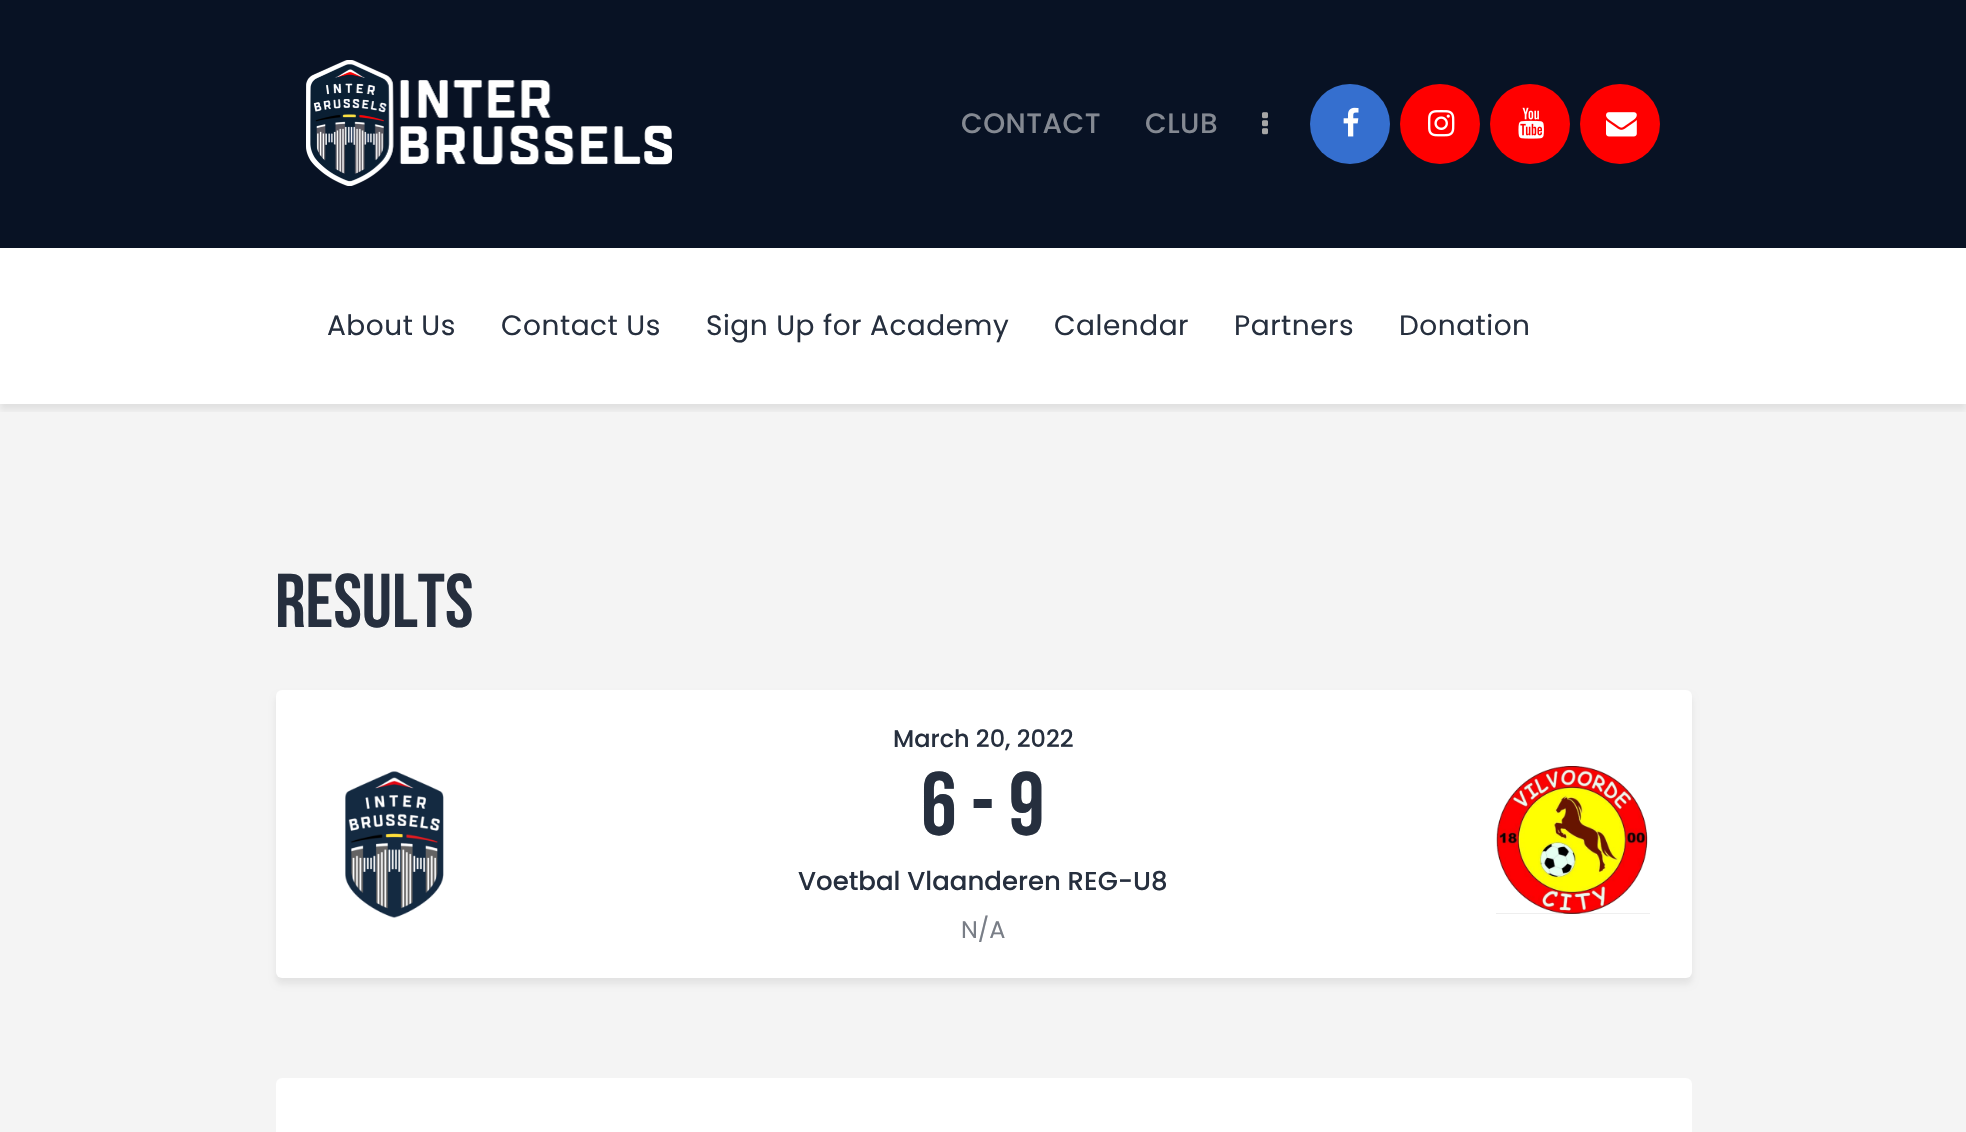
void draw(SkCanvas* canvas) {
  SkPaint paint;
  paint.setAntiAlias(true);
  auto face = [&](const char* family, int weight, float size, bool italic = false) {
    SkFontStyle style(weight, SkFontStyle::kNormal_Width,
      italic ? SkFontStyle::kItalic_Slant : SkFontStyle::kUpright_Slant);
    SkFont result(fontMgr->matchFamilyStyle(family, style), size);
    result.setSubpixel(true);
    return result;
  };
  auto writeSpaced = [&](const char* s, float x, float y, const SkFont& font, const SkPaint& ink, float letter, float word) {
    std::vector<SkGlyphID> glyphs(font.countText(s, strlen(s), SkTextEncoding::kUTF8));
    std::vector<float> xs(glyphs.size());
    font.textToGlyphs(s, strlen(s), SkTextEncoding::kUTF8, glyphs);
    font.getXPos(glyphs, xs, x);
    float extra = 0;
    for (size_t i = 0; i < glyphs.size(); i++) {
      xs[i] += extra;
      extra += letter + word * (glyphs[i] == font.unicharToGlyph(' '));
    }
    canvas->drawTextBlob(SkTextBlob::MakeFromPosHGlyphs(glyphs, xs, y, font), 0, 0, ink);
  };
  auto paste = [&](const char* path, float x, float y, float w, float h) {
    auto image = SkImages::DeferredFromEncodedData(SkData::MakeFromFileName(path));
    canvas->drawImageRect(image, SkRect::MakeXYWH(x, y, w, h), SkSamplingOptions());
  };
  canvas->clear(0xfff4f4f4);
  paint.setColor(0xffffffff);
  canvas->drawRect(SkRect::MakeXYWH(0, 248, 1966, 156), paint);
  canvas->save();
  canvas->clipRect(SkRect::MakeXYWH(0, 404, 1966, 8));
  paint.setColor(0x14000000);
  paint.setMaskFilter(SkMaskFilter::MakeBlur(kNormal_SkBlurStyle, 3));
  canvas->drawRect(SkRect::MakeXYWH(0, 256, 1966, 154), paint);
  paint.setMaskFilter(nullptr);
  canvas->restore();
  paint.setColor(0xff081224);
  canvas->drawRect(SkRect::MakeXYWH(0, 0, 1966, 248), paint);
  paste("img/1.png", 306, 60, 366, 126);
  paste("img/2.png", 1262, 112, 6, 23);
  paint.setColor(0xff356fcf);
  canvas->drawCircle(1350, 124, 40, paint);
  paste("img/3.png", 1343, 107, 16, 30);
  paint.setColor(0xffff0000);
  canvas->drawCircle(1440, 124, 40, paint);
  paste("img/4.png", 1428, 110, 27, 27);
  canvas->drawCircle(1530, 124, 40, paint);
  paste("img/5.png", 1518, 107, 26, 32);
  canvas->drawCircle(1620, 124, 40, paint);
  paste("img/6.png", 1606, 112, 31, 25);
  paint.setColor(0x12000000);
  paint.setMaskFilter(SkMaskFilter::MakeBlur(kNormal_SkBlurStyle, 3));
  canvas->drawRoundRect(SkRect::MakeXYWH(276, 696, 1416, 288), 6, 6, paint);
  paint.setMaskFilter(nullptr);
  paint.setColor(0xffffffff);
  canvas->drawRoundRect(SkRect::MakeXYWH(276, 690, 1416, 288), 6, 6, paint);
  paste("img/7.png", 345, 771, 99, 147);
  paste("img/8.png", 1496, 766, 154, 148);
  canvas->drawRoundRect(SkRect::MakeXYWH(276, 1078, 1416, 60), 6, 6, paint);
  auto f0 = face("Poppins", 500, 28);
  paint.setColor(0xff848992);
  writeSpaced("CONTACT", 961, 133, f0, paint, 0.5f, 0);
  writeSpaced("CLUB", 1145, 133, f0, paint, 0.5f, 0);
  auto f1 = face("Poppins", 400, 28);
  paint.setColor(0xff262f3e);
  {
    const struct { const char* s; float x, y; } items[] = {
      {"About Us", 327, 335},
      {"Contact Us", 501, 335},
      {"Sign Up for Academy", 706, 335},
      {"Calendar", 1054, 335},
      {"Partners", 1234, 335},
      {"Donation", 1399, 335},
    };
    for (auto [s, x, y] : items) {
      writeSpaced(s, x, y, f1, paint, 0.5f, 0);
    }
  }
  auto f2 = face("Bebas Neue", 700, 76);
  canvas->drawString("Results", 275, 627, f2, paint);
  auto f3 = face("Poppins", 500, 24);
  canvas->drawString("March 20, 2022", 893, 747, f3, paint);
  auto f4 = face("Bebas Neue", 700, 90);
  canvas->drawString("6 - 9", 921, 835, f4, paint);
  auto f5 = face("Poppins", 500, 26);
  canvas->drawString("Voetbal Vlaanderen REG-U8", 798, 890, f5, paint);
  auto f6 = face("Poppins", 400, 24);
  paint.setColor(0xff797e87);
  canvas->drawString("N/A", 961, 938, f6, paint);
}
